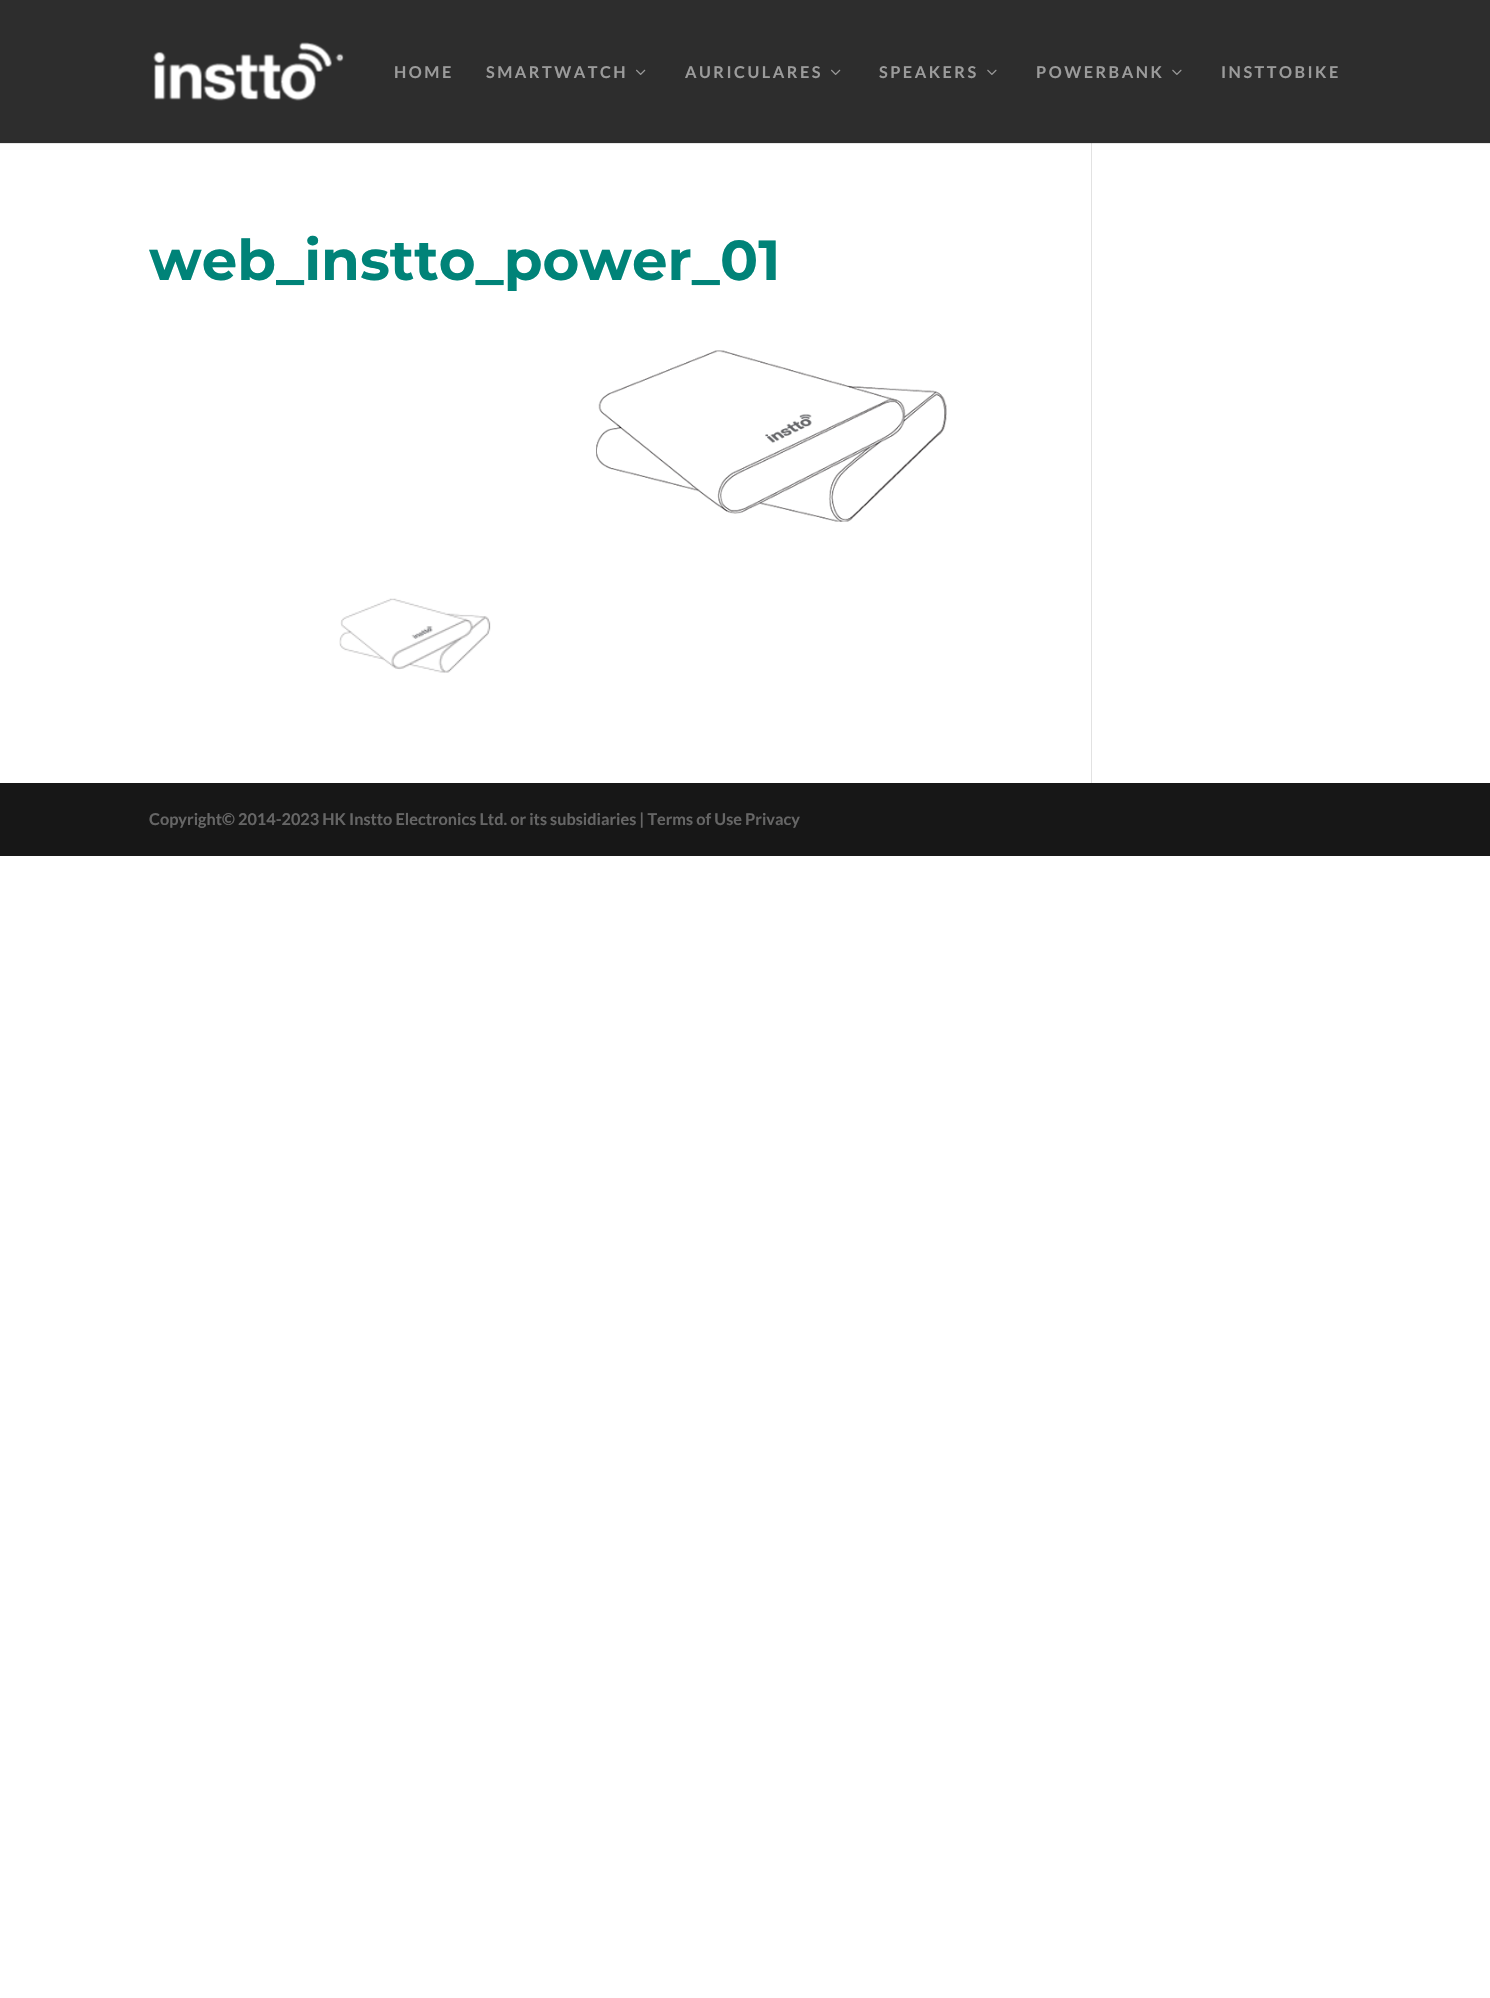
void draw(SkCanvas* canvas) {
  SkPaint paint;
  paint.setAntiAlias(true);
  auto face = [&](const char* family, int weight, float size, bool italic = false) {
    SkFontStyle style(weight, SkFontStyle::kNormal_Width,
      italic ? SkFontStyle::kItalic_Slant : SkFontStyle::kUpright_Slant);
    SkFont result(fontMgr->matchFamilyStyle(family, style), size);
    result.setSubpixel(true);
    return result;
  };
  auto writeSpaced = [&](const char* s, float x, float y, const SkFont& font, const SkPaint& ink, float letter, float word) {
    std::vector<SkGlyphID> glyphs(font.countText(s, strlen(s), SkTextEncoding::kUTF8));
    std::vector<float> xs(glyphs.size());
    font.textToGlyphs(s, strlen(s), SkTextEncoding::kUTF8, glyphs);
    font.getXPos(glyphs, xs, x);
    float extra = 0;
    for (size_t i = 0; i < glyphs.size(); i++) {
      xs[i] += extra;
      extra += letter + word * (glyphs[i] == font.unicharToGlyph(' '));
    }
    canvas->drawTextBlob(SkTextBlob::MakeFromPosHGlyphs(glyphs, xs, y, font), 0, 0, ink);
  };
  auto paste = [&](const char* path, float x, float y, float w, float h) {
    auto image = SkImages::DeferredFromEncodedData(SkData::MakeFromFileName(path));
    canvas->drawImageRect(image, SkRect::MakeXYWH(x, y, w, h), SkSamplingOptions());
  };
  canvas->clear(0xffffffff);
  paint.setColor(0xffe6e6e6);
  canvas->drawRect(SkRect::MakeXYWH(0, 143, 1490, 1), paint);
  paint.setColor(0xff2d2d2d);
  canvas->drawRect(SkRect::MakeXYWH(0, 0, 1490, 143), paint);
  paste("img/1.png", 153, 42, 191, 59);
  paste("img/2.png", 636, 69, 10, 6);
  paste("img/2.png", 831, 69, 10, 6);
  paste("img/3.png", 987, 69, 10, 6);
  paste("img/3.png", 1172, 69, 10, 6);
  paste("img/4.png", 596, 350, 351, 172);
  paste("img/5.png", 339, 598, 152, 75);
  {
    const struct { float x, y, w, h; SkColor color; } items[] = {
      {1091, 143, 1, 640, 0xffe2e2e2},
      {1091, 143, 1, 1, 0xffcbcbcb},
      {0, 783, 1490, 73, 0xff171717},
    };
    for (auto [x, y, w, h, color] : items) {
      paint.setColor(color);
      canvas->drawRect(SkRect::MakeXYWH(x, y, w, h), paint);
    }
  }
  auto f0 = face("Lato", 700, 16.25f);
  paint.setColor(0xff9b9b9b);
  {
    const struct { const char* s; float x, y; } items[] = {
      {"HOME", 394, 78},
      {"SMARTWATCH", 486, 78},
      {"AURICULARES", 685, 78},
      {"SPEAKERS", 879, 78},
      {"POWERBANK", 1036, 78},
      {"INSTTOBIKE", 1221, 78},
    };
    for (auto [s, x, y] : items) {
      writeSpaced(s, x, y, f0, paint, 2.5f, 0);
    }
  }
  auto f1 = face("Montserrat", 100, 56.25f);
  paint.setColor(0xff008378);
  canvas->drawString("web_instto_power_01", 149, 280, f1, paint);
  paint.setColor(0xff666666);
  canvas->drawString("Copyright© 2014-2023 HK Instto Electronics Ltd. or its subsidiaries | Terms of Use Privacy", 149, 825, f0, paint);
}
